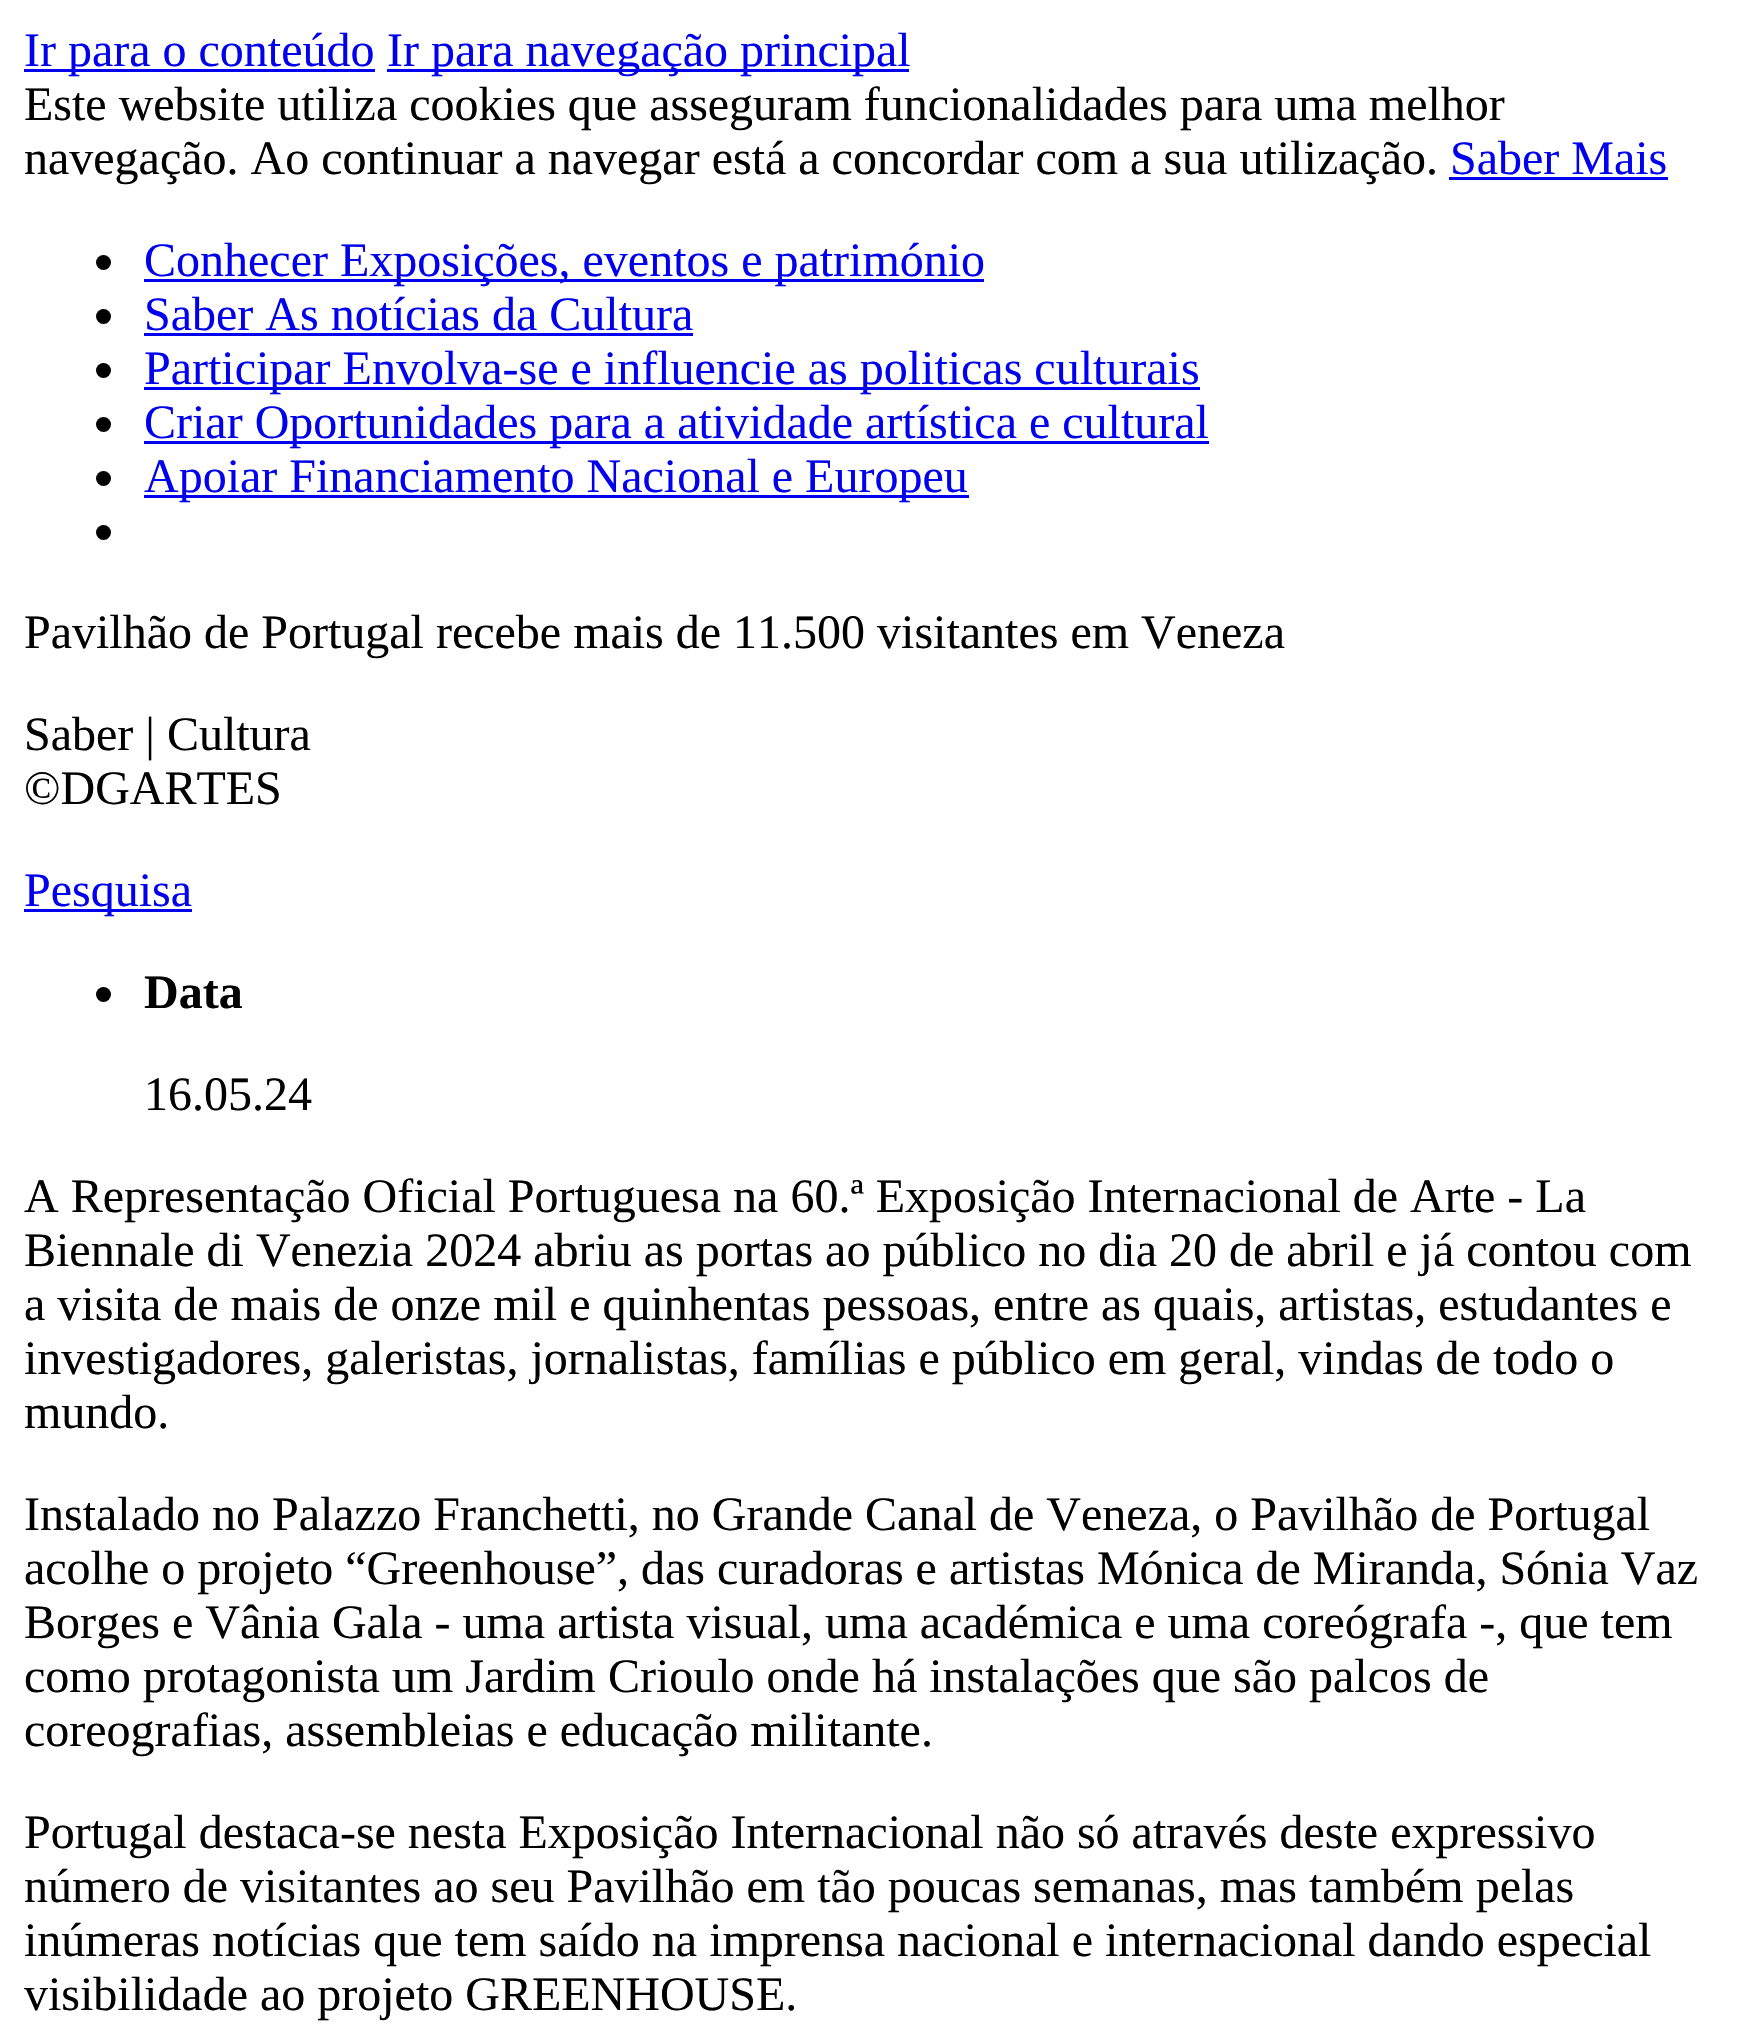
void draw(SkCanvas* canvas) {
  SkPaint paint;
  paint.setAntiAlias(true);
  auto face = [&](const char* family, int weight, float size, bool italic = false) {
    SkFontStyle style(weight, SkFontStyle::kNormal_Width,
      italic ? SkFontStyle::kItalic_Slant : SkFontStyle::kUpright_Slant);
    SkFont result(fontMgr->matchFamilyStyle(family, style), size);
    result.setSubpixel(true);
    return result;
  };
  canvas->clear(0xffffffff);
  {
    const struct { float x, y, w, h; SkColor color; } items[] = {
      {24, 69, 351, 3, 0xff0000ee},
      {387, 69, 522, 3, 0xff0000ee},
      {1449, 177, 219, 3, 0xff0000ee},
    };
    for (auto [x, y, w, h, color] : items) {
      paint.setColor(color);
      canvas->drawRect(SkRect::MakeXYWH(x, y, w, h), paint);
    }
  }
  paint.setColor(0xff000000);
  canvas->drawCircle(103.5f, 262.5f, 7.5f, paint);
  paint.setColor(0xff0000ee);
  canvas->drawRect(SkRect::MakeXYWH(144, 279, 840, 3), paint);
  paint.setColor(0xff000000);
  canvas->drawCircle(103.5f, 316.5f, 7.5f, paint);
  paint.setColor(0xff0000ee);
  canvas->drawRect(SkRect::MakeXYWH(144, 333, 549, 3), paint);
  paint.setColor(0xff000000);
  canvas->drawCircle(103.5f, 370.5f, 7.5f, paint);
  paint.setColor(0xff0000ee);
  canvas->drawRect(SkRect::MakeXYWH(144, 387, 1056, 3), paint);
  paint.setColor(0xff000000);
  canvas->drawCircle(103.5f, 424.5f, 7.5f, paint);
  paint.setColor(0xff0000ee);
  canvas->drawRect(SkRect::MakeXYWH(144, 441, 1065, 3), paint);
  paint.setColor(0xff000000);
  canvas->drawCircle(103.5f, 478.5f, 7.5f, paint);
  paint.setColor(0xff0000ee);
  canvas->drawRect(SkRect::MakeXYWH(144, 495, 825, 3), paint);
  paint.setColor(0xff000000);
  canvas->drawCircle(103.5f, 532.5f, 7.5f, paint);
  paint.setColor(0xff0000ee);
  canvas->drawRect(SkRect::MakeXYWH(24, 909, 168, 3), paint);
  paint.setColor(0xff000000);
  canvas->drawCircle(103.5f, 994.5f, 7.5f, paint);
  auto f0 = face("Liberation Serif", 400, 48);
  paint.setColor(0xff0000ee);
  canvas->drawString("Ir para o conteúdo", 24, 66, f0, paint);
  canvas->drawString("Ir para navegação principal", 387, 66, f0, paint);
  paint.setColor(0xff000000);
  canvas->drawString("Este website utiliza cookies que asseguram funcionalidades para uma melhor", 24, 120, f0, paint);
  canvas->drawString("navegação. Ao continuar a navegar está a concordar com a sua utilização.", 24, 174, f0, paint);
  paint.setColor(0xff0000ee);
  {
    const struct { const char* s; float x, y; } items[] = {
      {"Saber Mais", 1450, 174},
      {"Conhecer Exposições, eventos e património", 144, 276},
      {"Saber As notícias da Cultura", 144, 330},
      {"Participar Envolva-se e influencie as politicas culturais", 144, 384},
      {"Criar Oportunidades para a atividade artística e cultural", 144, 438},
      {"Apoiar Financiamento Nacional e Europeu", 144, 492},
    };
    for (auto [s, x, y] : items) {
      canvas->drawString(s, x, y, f0, paint);
    }
  }
  paint.setColor(0xff000000);
  {
    const struct { const char* s; float x, y; } items[] = {
      {"Pavilhão de Portugal recebe mais de 11.500 visitantes em Veneza", 24, 648},
      {"Saber | Cultura", 24, 750},
      {"©DGARTES", 24, 804},
    };
    for (auto [s, x, y] : items) {
      canvas->drawString(s, x, y, f0, paint);
    }
  }
  paint.setColor(0xff0000ee);
  canvas->drawString("Pesquisa", 24, 906, f0, paint);
  auto f1 = face("Liberation Serif", 700, 48);
  paint.setColor(0xff000000);
  canvas->drawString("Data", 144, 1008, f1, paint);
  {
    const struct { const char* s; float x, y; } items[] = {
      {"16.05.24", 144, 1110},
      {"A Representação Oficial Portuguesa na 60.ª Exposição Internacional de Arte - La", 24, 1212},
      {"Biennale di Venezia 2024 abriu as portas ao público no dia 20 de abril e já contou com", 24, 1266},
      {"a visita de mais de onze mil e quinhentas pessoas, entre as quais, artistas, estudantes e", 24, 1320},
      {"investigadores, galeristas, jornalistas, famílias e público em geral, vindas de todo o", 24, 1374},
      {"mundo.", 24, 1428},
      {"Instalado no Palazzo Franchetti, no Grande Canal de Veneza, o Pavilhão de Portugal", 24, 1530},
      {"acolhe o projeto “Greenhouse”, das curadoras e artistas Mónica de Miranda, Sónia Vaz", 24, 1584},
      {"Borges e Vânia Gala - uma artista visual, uma académica e uma coreógrafa -, que tem", 24, 1638},
      {"como protagonista um Jardim Crioulo onde há instalações que são palcos de", 24, 1692},
      {"coreografias, assembleias e educação militante.", 24, 1746},
      {"Portugal destaca-se nesta Exposição Internacional não só através deste expressivo", 24, 1848},
      {"número de visitantes ao seu Pavilhão em tão poucas semanas, mas também pelas", 24, 1902},
      {"inúmeras notícias que tem saído na imprensa nacional e internacional dando especial", 24, 1956},
      {"visibilidade ao projeto GREENHOUSE.", 24, 2010},
    };
    for (auto [s, x, y] : items) {
      canvas->drawString(s, x, y, f0, paint);
    }
  }
}
